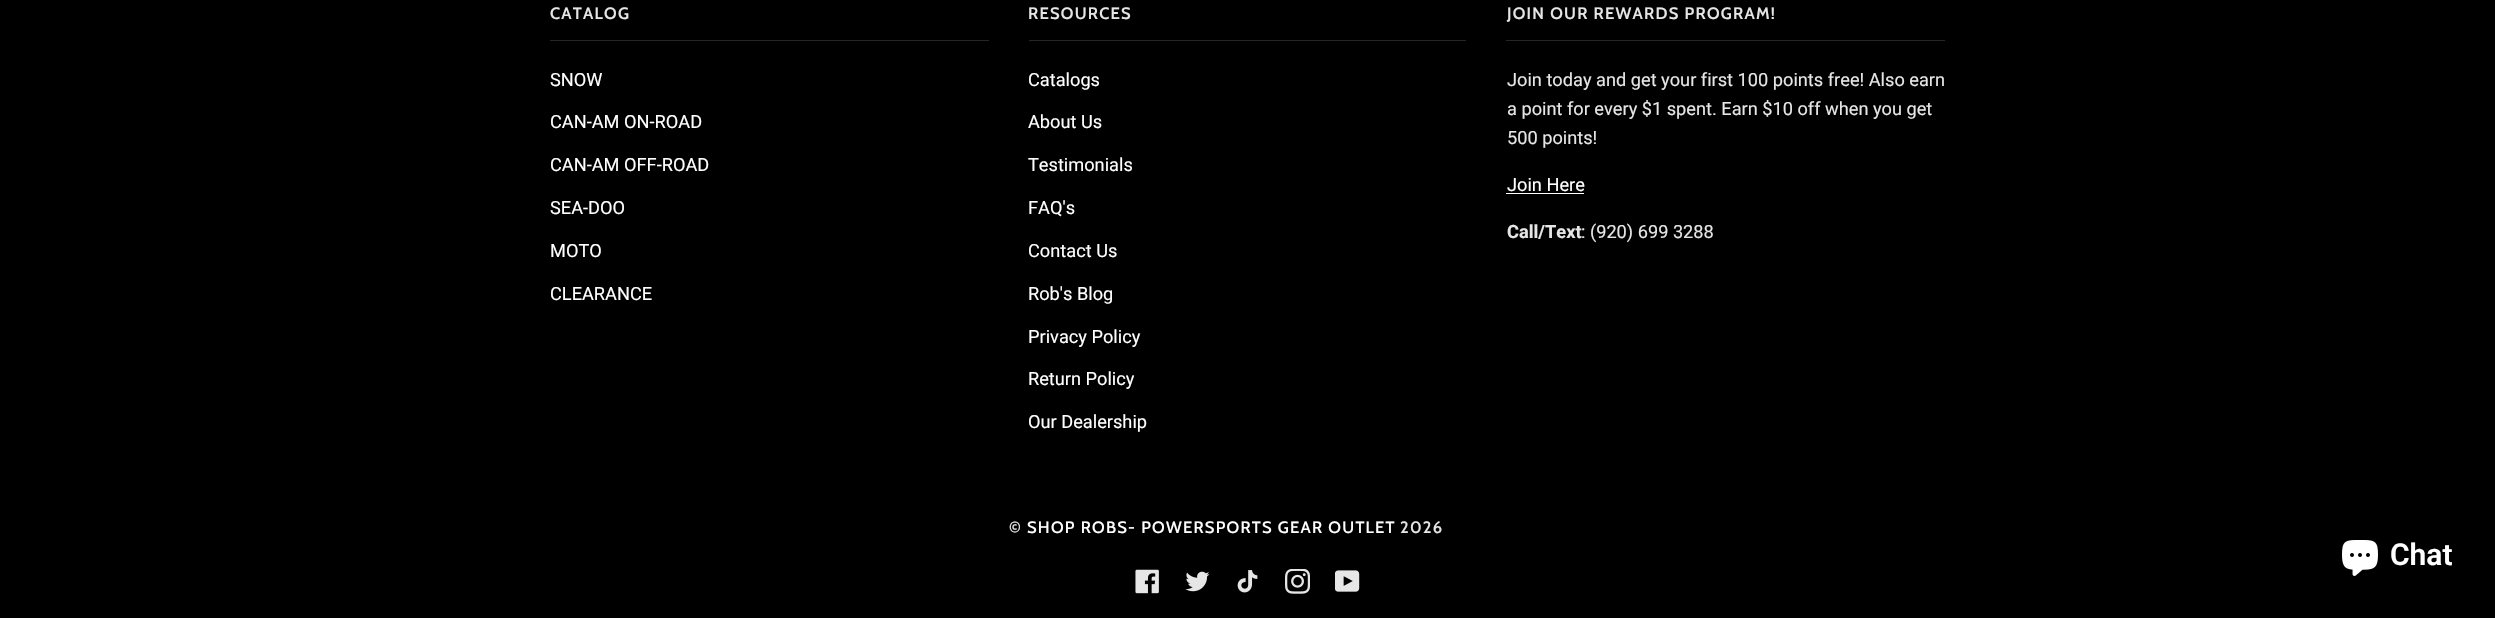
void draw(SkCanvas* canvas) {
  SkPaint paint;
  paint.setAntiAlias(true);
  auto face = [&](const char* family, int weight, float size, bool italic = false) {
    SkFontStyle style(weight, SkFontStyle::kNormal_Width,
      italic ? SkFontStyle::kItalic_Slant : SkFontStyle::kUpright_Slant);
    SkFont result(fontMgr->matchFamilyStyle(family, style), size);
    result.setSubpixel(true);
    return result;
  };
  auto writeSpaced = [&](const char* s, float x, float y, const SkFont& font, const SkPaint& ink, float letter, float word) {
    std::vector<SkGlyphID> glyphs(font.countText(s, strlen(s), SkTextEncoding::kUTF8));
    std::vector<float> xs(glyphs.size());
    font.textToGlyphs(s, strlen(s), SkTextEncoding::kUTF8, glyphs);
    font.getXPos(glyphs, xs, x);
    float extra = 0;
    for (size_t i = 0; i < glyphs.size(); i++) {
      xs[i] += extra;
      extra += letter + word * (glyphs[i] == font.unicharToGlyph(' '));
    }
    canvas->drawTextBlob(SkTextBlob::MakeFromPosHGlyphs(glyphs, xs, y, font), 0, 0, ink);
  };
  auto paste = [&](const char* path, float x, float y, float w, float h) {
    auto image = SkImages::DeferredFromEncodedData(SkData::MakeFromFileName(path));
    canvas->drawImageRect(image, SkRect::MakeXYWH(x, y, w, h), SkSamplingOptions());
  };
  canvas->clear(0xff000000);
  {
    const struct { float x, y, w, h; SkColor color; } items[] = {
      {550, 40, 439, 1, 0xff262626},
      {1029, 40, 437, 1, 0xff262626},
      {1506, 40, 439, 1, 0xff262626},
      {1506, 193, 78, 1, 0xffffffff},
    };
    for (auto [x, y, w, h, color] : items) {
      paint.setColor(color);
      canvas->drawRect(SkRect::MakeXYWH(x, y, w, h), paint);
    }
  }
  paste("img/1.png", 1135, 569, 24, 25);
  paste("img/2.png", 1185, 571, 25, 21);
  paste("img/3.png", 1237, 570, 21, 23);
  paste("img/4.png", 1285, 569, 25, 25);
  paste("img/5.png", 1335, 570, 25, 22);
  paste("img/6.png", 2342, 540, 36, 36);
  auto f0 = face("Cabin", 600, 16.5f);
  paint.setColor(0xffe6e6e6);
  writeSpaced("CATALOG", 550, 19, f0, paint, 1.25f, 0);
  auto f1 = face("Roboto", 400, 18.2f);
  paint.setColor(0xffffffff);
  {
    const struct { const char* s; float x, y; } items[] = {
      {"SNOW", 550, 86},
      {"CAN-AM ON-ROAD", 550, 128},
      {"CAN-AM OFF-ROAD", 550, 171},
      {"SEA-DOO", 550, 214},
      {"MOTO", 550, 257},
      {"CLEARANCE", 550, 300},
    };
    for (auto [s, x, y] : items) {
      canvas->drawString(s, x, y, f1, paint);
    }
  }
  paint.setColor(0xffe6e6e6);
  writeSpaced("RESOURCES", 1028, 19, f0, paint, 1.25f, 0);
  paint.setColor(0xffffffff);
  {
    const struct { const char* s; float x, y; } items[] = {
      {"Catalogs", 1028, 86},
      {"About Us", 1028, 128},
      {"Testimonials", 1028, 171},
      {"FAQ's", 1028, 214},
      {"Contact Us", 1028, 257},
      {"Rob's Blog", 1028, 300},
      {"Privacy Policy", 1028, 343},
      {"Return Policy", 1028, 385},
      {"Our Dealership", 1028, 428},
    };
    for (auto [s, x, y] : items) {
      canvas->drawString(s, x, y, f1, paint);
    }
  }
  paint.setColor(0xffe6e6e6);
  writeSpaced("JOIN OUR REWARDS PROGRAM!", 1507, 19, f0, paint, 1.25f, 0);
  {
    const struct { const char* s; float x, y; } items[] = {
      {"Join today and get your first 100 points free! Also earn", 1507, 86},
      {"a point for every $1 spent. Earn $10 off when you get", 1507, 115},
      {"500 points!", 1507, 144},
    };
    for (auto [s, x, y] : items) {
      canvas->drawString(s, x, y, f1, paint);
    }
  }
  paint.setColor(0xffffffff);
  canvas->drawString("Join Here", 1507, 191, f1, paint);
  auto f2 = face("Roboto", 700, 18.2f);
  paint.setColor(0xffe6e6e6);
  canvas->drawString("Call/Text", 1507, 238, f2, paint);
  canvas->drawString(": (920) 699 3288", 1581, 238, f1, paint);
  auto f3 = face("Cabin", 500, 16.5f);
  writeSpaced("©", 1009, 533, f3, paint, 1.25f, 0);
  paint.setColor(0xffffffff);
  writeSpaced("SHOP ROBS- POWERSPORTS GEAR OUTLET", 1027, 533, f3, paint, 1.25f, 0);
  paint.setColor(0xffe6e6e6);
  writeSpaced("2026", 1400, 533, f3, paint, 1.25f, 0);
  auto f4 = face("Roboto", 600, 30);
  paint.setColor(0xffffffff);
  canvas->drawString("Chat", 2390, 565, f4, paint);
}
